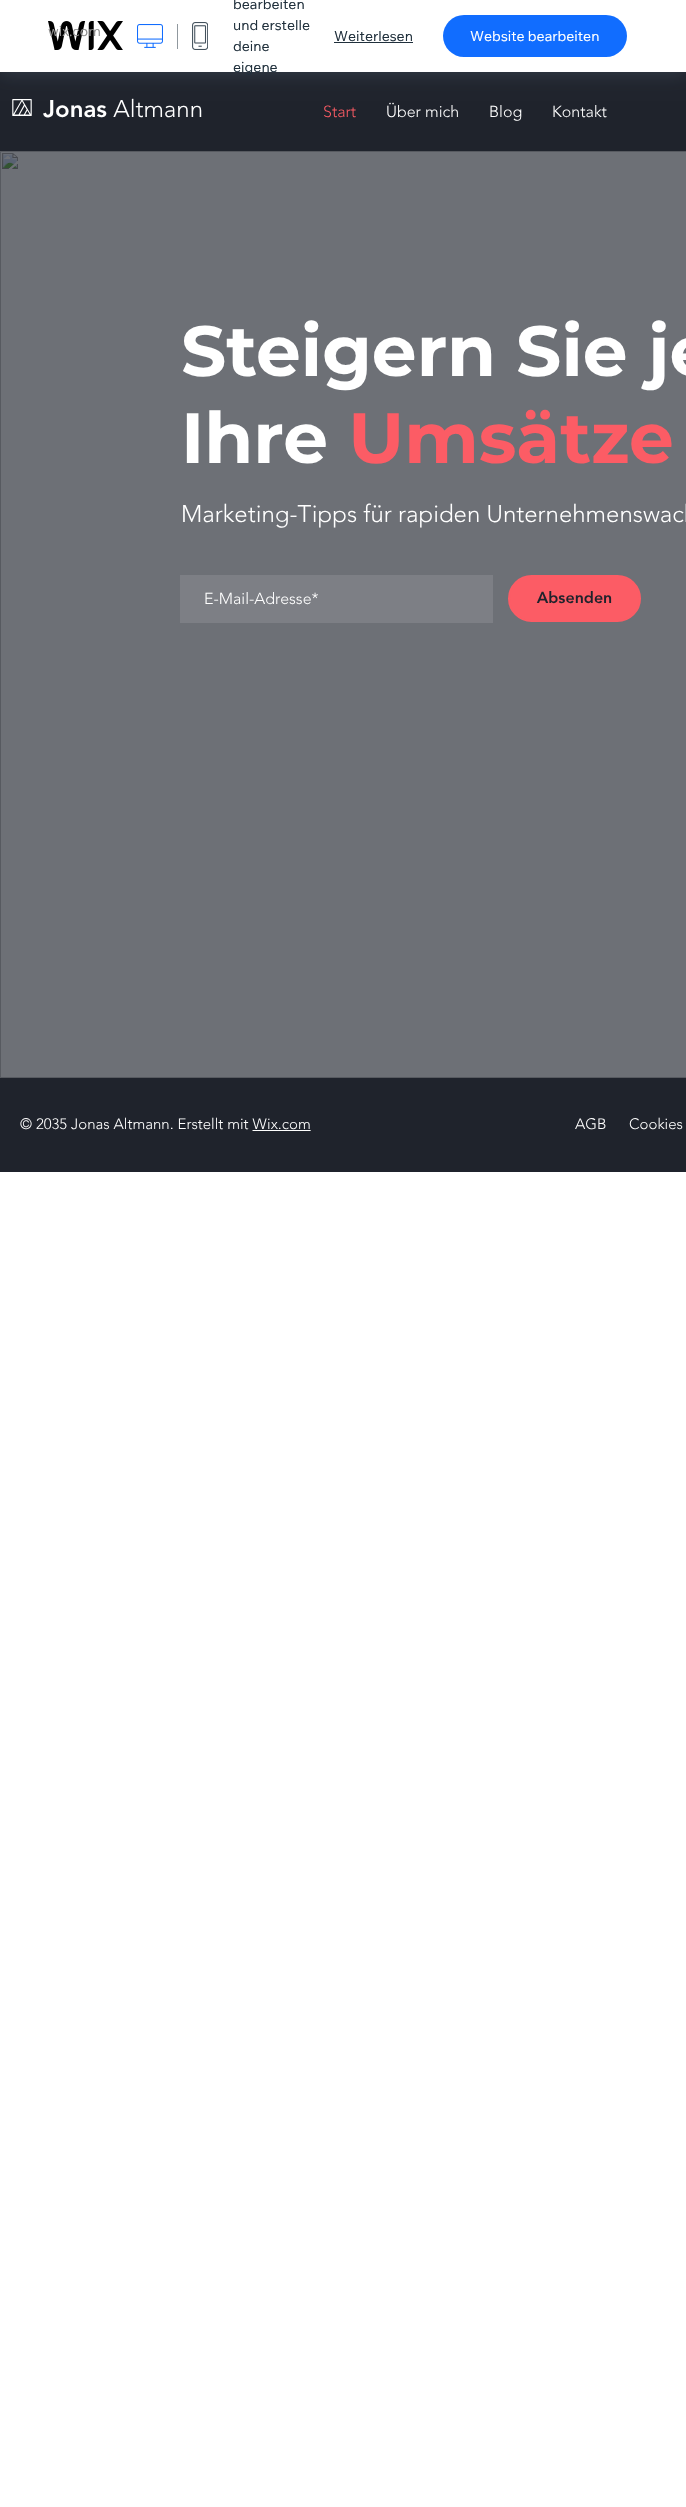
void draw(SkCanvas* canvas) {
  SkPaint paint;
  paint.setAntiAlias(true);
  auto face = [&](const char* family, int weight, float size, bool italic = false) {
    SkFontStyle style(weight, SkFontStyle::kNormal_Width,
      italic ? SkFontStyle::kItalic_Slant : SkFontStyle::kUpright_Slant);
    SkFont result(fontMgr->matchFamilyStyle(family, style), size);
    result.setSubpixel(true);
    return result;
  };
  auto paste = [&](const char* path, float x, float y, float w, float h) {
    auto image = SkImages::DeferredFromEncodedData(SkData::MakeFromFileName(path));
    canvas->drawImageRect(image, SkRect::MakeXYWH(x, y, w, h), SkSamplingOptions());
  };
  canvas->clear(0xffffffff);
  paste("img/4.png", 0, 72, 686, 2435);
  paint.setColor(0x3381a2b6);
  paint.setMaskFilter(SkMaskFilter::MakeBlur(kNormal_SkBlurStyle, 9));
  canvas->drawRect(SkRect::MakeXYWH(0, 2, 686, 72), paint);
  paint.setMaskFilter(nullptr);
  paint.setColor(0xffffffff);
  canvas->drawRect(SkRect::MakeXYWH(0, 0, 686, 72), paint);
  paste("img/1.png", 48, 21, 75, 29);
  paste("img/2.png", 137, 24, 26, 24);
  paint.setColor(0xff90989e);
  canvas->drawRect(SkRect::MakeXYWH(177, 24, 1, 25), paint);
  paste("img/3.png", 192, 22, 16, 28);
  paint.setColor(0xff20303c);
  canvas->drawRect(SkRect::MakeXYWH(334, 42, 79, 1), paint);
  paint.setColor(0xff116dff);
  canvas->drawRoundRect(SkRect::MakeXYWH(443, 15, 184, 42), 21, 21, paint);
  auto f0 = face("Wix Madefor Text", 400, 14);
  paint.setColor(0xff8f8f8f);
  canvas->drawString("wix.com", 48, 36, f0, paint);
  paint.setColor(0xff20303c);
  {
    const struct { const char* s; float x, y; } items[] = {
      {"bearbeiten", 233, 9},
      {"und erstelle", 233, 30},
      {"deine", 233, 51},
      {"eigene", 233, 72},
      {"Weiterlesen", 334, 41},
    };
    for (auto [s, x, y] : items) {
      canvas->drawString(s, x, y, f0, paint);
    }
  }
  paint.setColor(0xffffffff);
  canvas->drawString("Website bearbeiten", 470, 41, f0, paint);
}
